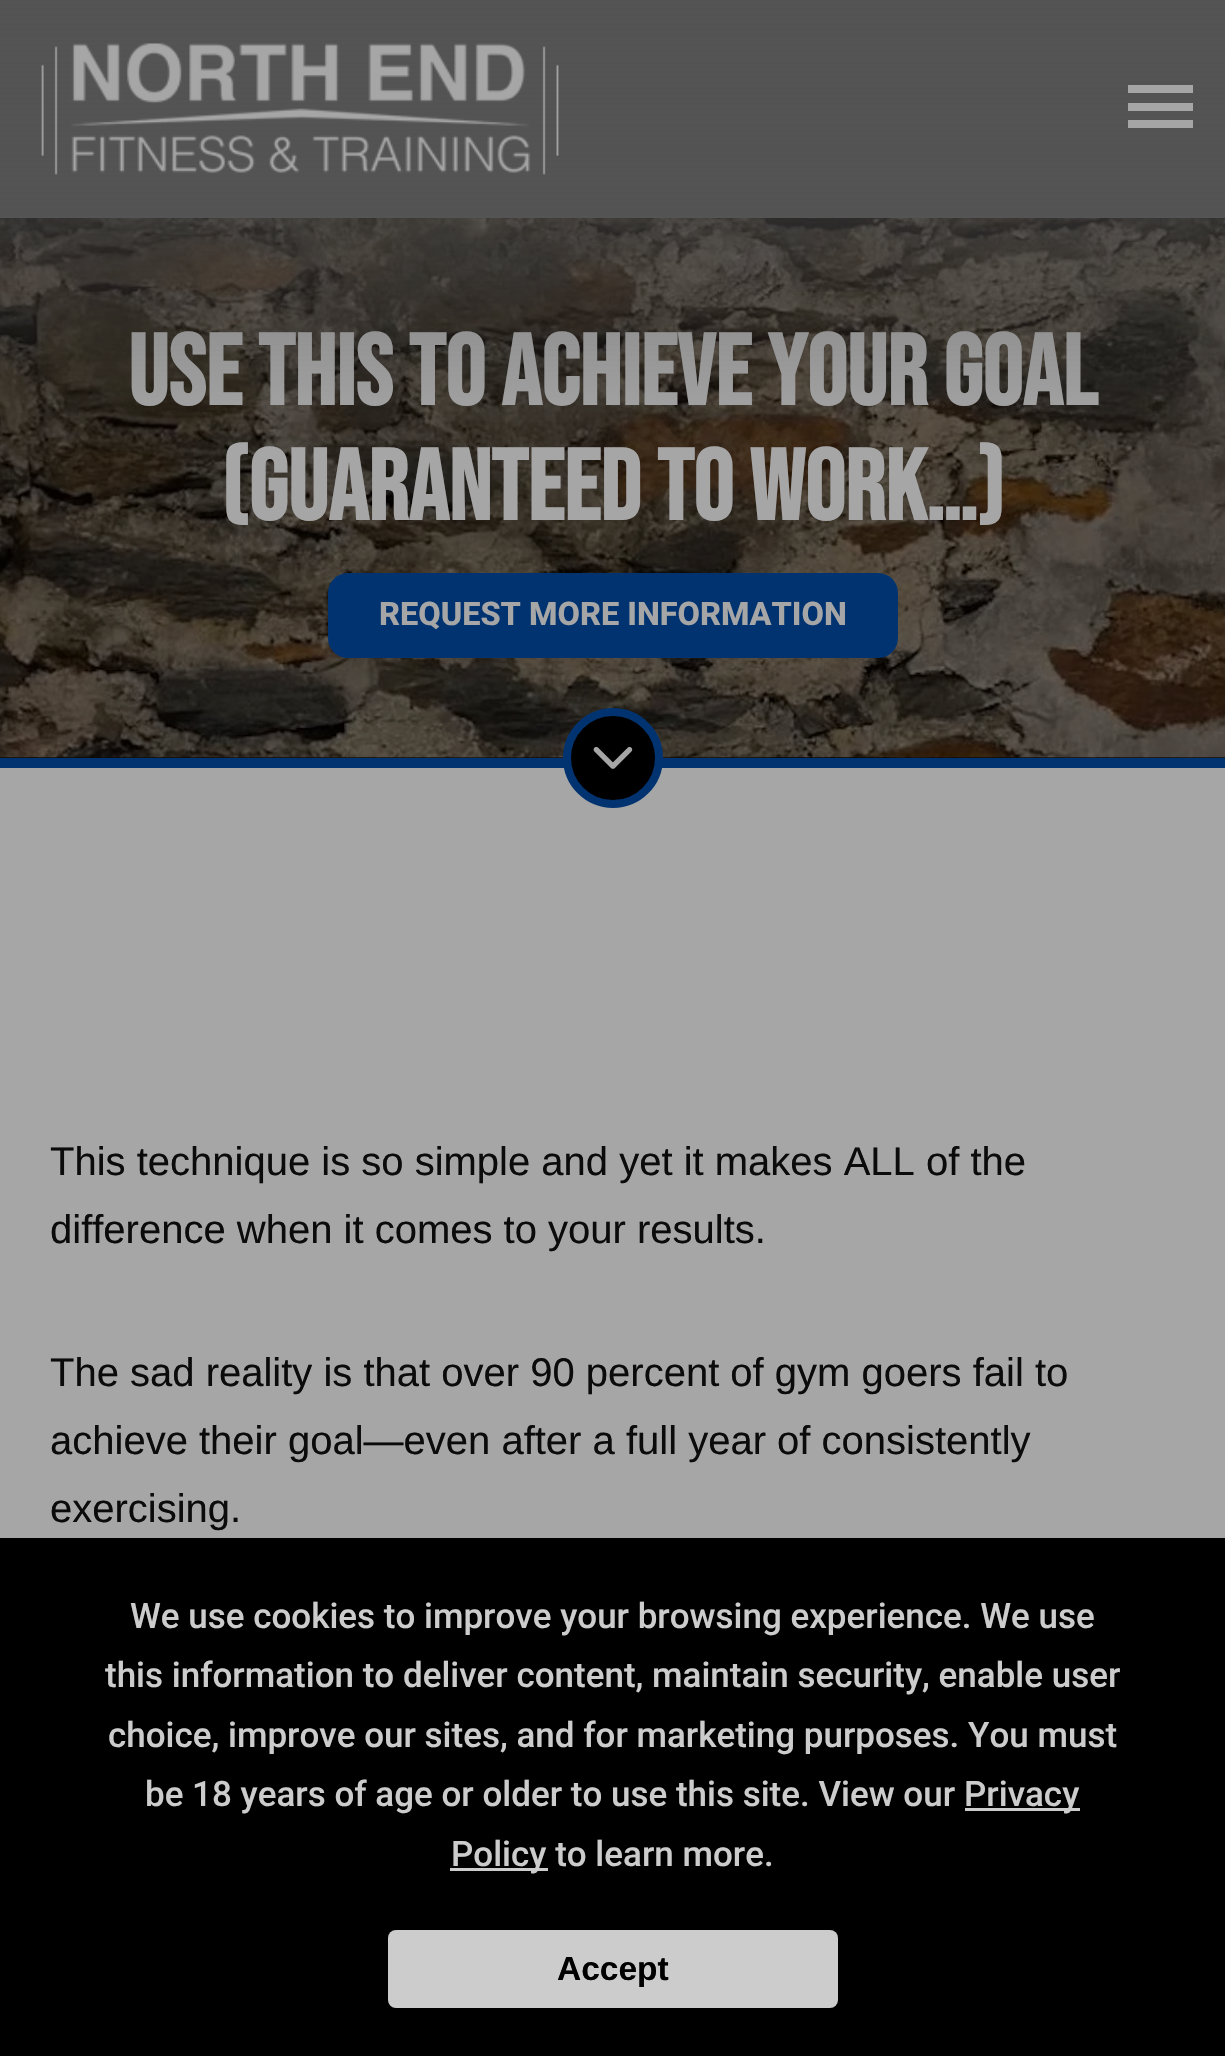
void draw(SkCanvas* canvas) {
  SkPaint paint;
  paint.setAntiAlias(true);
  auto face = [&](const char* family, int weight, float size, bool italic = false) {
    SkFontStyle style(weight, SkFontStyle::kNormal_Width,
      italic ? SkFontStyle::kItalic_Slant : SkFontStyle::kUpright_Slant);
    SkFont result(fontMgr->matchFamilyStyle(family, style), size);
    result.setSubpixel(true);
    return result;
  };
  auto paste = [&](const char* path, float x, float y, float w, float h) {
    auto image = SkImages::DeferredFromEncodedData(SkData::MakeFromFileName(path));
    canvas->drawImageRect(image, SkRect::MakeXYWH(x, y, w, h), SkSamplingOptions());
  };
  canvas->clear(0xffa6a6a6);
  paint.setColor(0xff535353);
  canvas->drawRect(SkRect::MakeXYWH(0, 3, 1225, 215), paint);
  paint.setColor(0xff000000);
  canvas->drawRect(SkRect::MakeXYWH(0, 218, 1225, 540), paint);
  paste("img/2.png", 0, 218, 1225, 540);
  paint.setColor(0xff013371);
  canvas->drawRoundRect(SkRect::MakeXYWH(328, 573, 570, 85), 20, 20, paint);
  canvas->drawRect(SkRect::MakeXYWH(0, 758, 1225, 10), paint);
  paint.setColor(0xff000000);
  canvas->drawCircle(613, 758, 46, paint);
  paint.setStroke(true);
  paint.setStrokeWidth(8);
  paint.setColor(0xff013371);
  canvas->drawCircle(613, 758, 46, paint);
  paste("img/3.png", 593, 746, 40, 23);
  paint.setStroke(false);
  {
    const struct { float x, y, w, h; SkColor color; } items[] = {
      {0, 1538, 1225, 518, 0xff000000},
      {965, 1808, 115, 3, 0xffcccccc},
      {450, 1868, 98, 3, 0xffcccccc},
    };
    for (auto [x, y, w, h, color] : items) {
      paint.setColor(color);
      canvas->drawRect(SkRect::MakeXYWH(x, y, w, h), paint);
    }
  }
  canvas->drawRoundRect(SkRect::MakeXYWH(388, 1930, 450, 78), 8, 8, paint);
  auto f0 = face("Bebas Neue", 700, 100);
  paint.setColor(0xffa6a6a6);
  canvas->drawString("Use THIS to achieve your goal", 128, 405, f0, paint);
  {
    const SkColor colors[] = {0xff535353, 0x00535353};
    const float stops[] = {0, 1};
    const SkPoint ends[] = {{613, 0}, {613, 435}};
    paint.setShader(SkGradientShader::MakeLinear(ends, colors, stops, 2, SkTileMode::kClamp));
    paint.setAlpha(255);
  }
  canvas->drawRect(SkRect::MakeXYWH(0, 0, 1225, 422), paint);
  paint.setShader(nullptr);
  {
    const struct { float x, y, w, h; SkColor color; } items[] = {
      {1128, 120, 65, 8, 0xffa6a6a6},
      {1128, 103, 65, 8, 0xffa6a6a6},
      {1128, 85, 65, 8, 0xffa6a6a6},
    };
    for (auto [x, y, w, h, color] : items) {
      paint.setColor(color);
      canvas->drawRect(SkRect::MakeXYWH(x, y, w, h), paint);
    }
  }
  paste("img/1.png", 41, 43, 518, 132);
  canvas->drawString("(guaranteed to work…)", 221, 520, f0, paint);
  auto f1 = face("Roboto", 800, 32.5f);
  canvas->drawString("REQUEST MORE INFORMATION", 379, 625, f1, paint);
  auto f2 = face("Liberation Sans", 400, 40);
  paint.setColor(0xff0b0b0b);
  {
    const struct { const char* s; float x, y; } items[] = {
      {"This technique is so simple and yet it makes ALL of the", 50, 1175},
      {"difference when it comes to your results.", 50, 1243},
      {"The sad reality is that over 90 percent of gym goers fail to", 50, 1386},
      {"achieve their goal—even after a full year of consistently", 50, 1454},
      {"exercising.", 50, 1522},
    };
    for (auto [s, x, y] : items) {
      canvas->drawString(s, x, y, f2, paint);
    }
  }
  auto f3 = face("Roboto", 500, 35);
  paint.setColor(0xffcccccc);
  {
    const struct { const char* s; float x, y; } items[] = {
      {"We use cookies to improve your browsing experience. We use", 130, 1628},
      {"this information to deliver content, maintain security, enable user", 105, 1687},
      {"choice, improve our sites, and for marketing purposes. You must", 108, 1747},
      {"be 18 years of age or older to use this site. View our", 145, 1806},
      {"Privacy", 964, 1806},
      {"Policy to learn more.", 451, 1866},
    };
    for (auto [s, x, y] : items) {
      canvas->drawString(s, x, y, f3, paint);
    }
  }
  auto f4 = face("Liberation Sans", 700, 33.5f);
  paint.setColor(0xff000000);
  canvas->drawString("Accept", 557, 1980, f4, paint);
}
